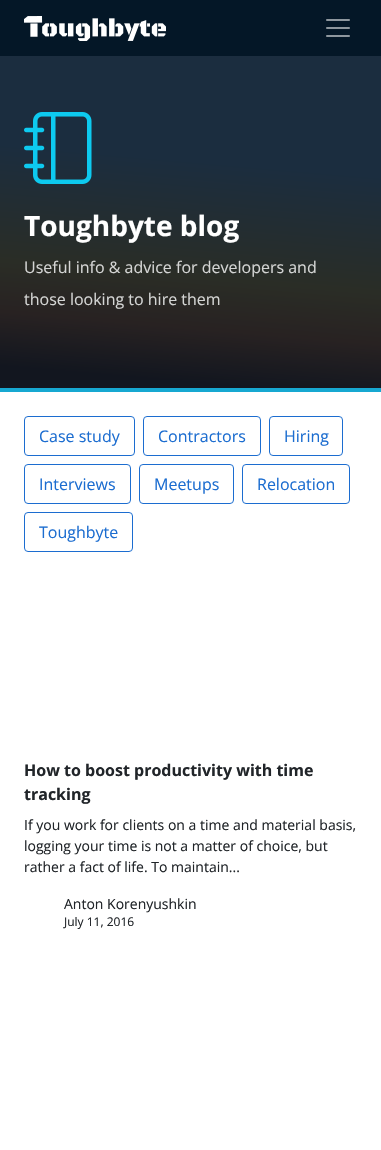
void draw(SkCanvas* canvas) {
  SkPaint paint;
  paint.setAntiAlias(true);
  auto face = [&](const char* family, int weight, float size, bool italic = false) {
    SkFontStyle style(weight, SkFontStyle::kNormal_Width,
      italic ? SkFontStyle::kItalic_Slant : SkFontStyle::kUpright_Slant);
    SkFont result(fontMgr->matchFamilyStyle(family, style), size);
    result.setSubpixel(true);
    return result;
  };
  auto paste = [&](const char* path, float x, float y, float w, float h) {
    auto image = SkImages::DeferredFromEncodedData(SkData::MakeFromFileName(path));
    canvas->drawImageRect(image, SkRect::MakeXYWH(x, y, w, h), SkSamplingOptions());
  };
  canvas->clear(0xff041727);
  paint.setColor(0xffffffff);
  canvas->drawRect(SkRect::MakeXYWH(0, 392, 381, 758), paint);
  paste("img/1.png", 24, 16, 142, 25);
  paste("img/2.png", 326, 19, 24, 18);
  {
    const SkColor colors[] = {0xff12161f, 0xff282222, 0xff2a2d26, 0xff1b2d3f};
    const float stops[] = {0.06f, 0.21f, 0.35f, 0.67f};
    const SkPoint ends[] = {{175, 403}, {206, 41}};
    paint.setShader(SkGradientShader::MakeLinear(ends, colors, stops, 4, SkTileMode::kClamp));
    paint.setAlpha(255);
  }
  canvas->drawRect(SkRect::MakeXYWH(0, 56, 381, 332), paint);
  paint.setShader(nullptr);
  paint.setColor(0xff17a8d1);
  canvas->drawRect(SkRect::MakeXYWH(0, 388, 381, 4), paint);
  paste("img/3.png", 24, 112, 68, 72);
  paint.setStroke(true);
  paint.setStrokeWidth(1);
  paint.setColor(0xff1c6dd0);
  canvas->drawRoundRect(SkRect::MakeXYWH(24.5f, 416.5f, 110, 39), 3.5f, 3.5f, paint);
  canvas->drawRoundRect(SkRect::MakeXYWH(143.5f, 416.5f, 117, 39), 3.5f, 3.5f, paint);
  canvas->drawRoundRect(SkRect::MakeXYWH(269.5f, 416.5f, 73, 39), 3.5f, 3.5f, paint);
  canvas->drawRoundRect(SkRect::MakeXYWH(24.5f, 464.5f, 106, 39), 3.5f, 3.5f, paint);
  canvas->drawRoundRect(SkRect::MakeXYWH(139.5f, 464.5f, 94, 39), 3.5f, 3.5f, paint);
  canvas->drawRoundRect(SkRect::MakeXYWH(242.5f, 464.5f, 107, 39), 3.5f, 3.5f, paint);
  canvas->drawRoundRect(SkRect::MakeXYWH(24.5f, 512.5f, 108, 39), 3.5f, 3.5f, paint);
  auto f0 = face("Open Sans", 700, 28);
  paint.setStroke(false);
  paint.setColor(0xffffffff);
  canvas->drawString("Toughbyte blog", 24, 236, f0, paint);
  auto f1 = face("Open Sans", 400, 16);
  paint.setColor(0xffd4d5d4);
  canvas->drawString("Useful info & advice for developers and", 24, 273, f1, paint);
  canvas->drawString("those looking to hire them", 24, 305, f1, paint);
  paint.setColor(0xff1c6dd0);
  {
    const struct { const char* s; float x, y; } items[] = {
      {"Case study", 39, 442},
      {"Contractors", 158, 442},
      {"Hiring", 284, 442},
      {"Interviews", 39, 490},
      {"Meetups", 154, 490},
      {"Relocation", 257, 490},
      {"Toughbyte", 39, 538},
    };
    for (auto [s, x, y] : items) {
      canvas->drawString(s, x, y, f1, paint);
    }
  }
  auto f2 = face("Open Sans", 700, 16);
  paint.setColor(0xff212529);
  canvas->drawString("How to boost productivity with time", 24, 776, f2, paint);
  canvas->drawString("tracking", 24, 800, f2, paint);
  auto f3 = face("Open Sans", 400, 14);
  {
    const struct { const char* s; float x, y; } items[] = {
      {"If you work for clients on a time and material basis,", 24, 830},
      {"logging your time is not a matter of choice, but", 24, 851},
      {"rather a fact of life. To maintain...", 24, 872},
      {"Anton Korenyushkin", 64, 909},
    };
    for (auto [s, x, y] : items) {
      canvas->drawString(s, x, y, f3, paint);
    }
  }
  auto f4 = face("Open Sans", 400, 12);
  canvas->drawString("July 11, 2016", 64, 926, f4, paint);
}
